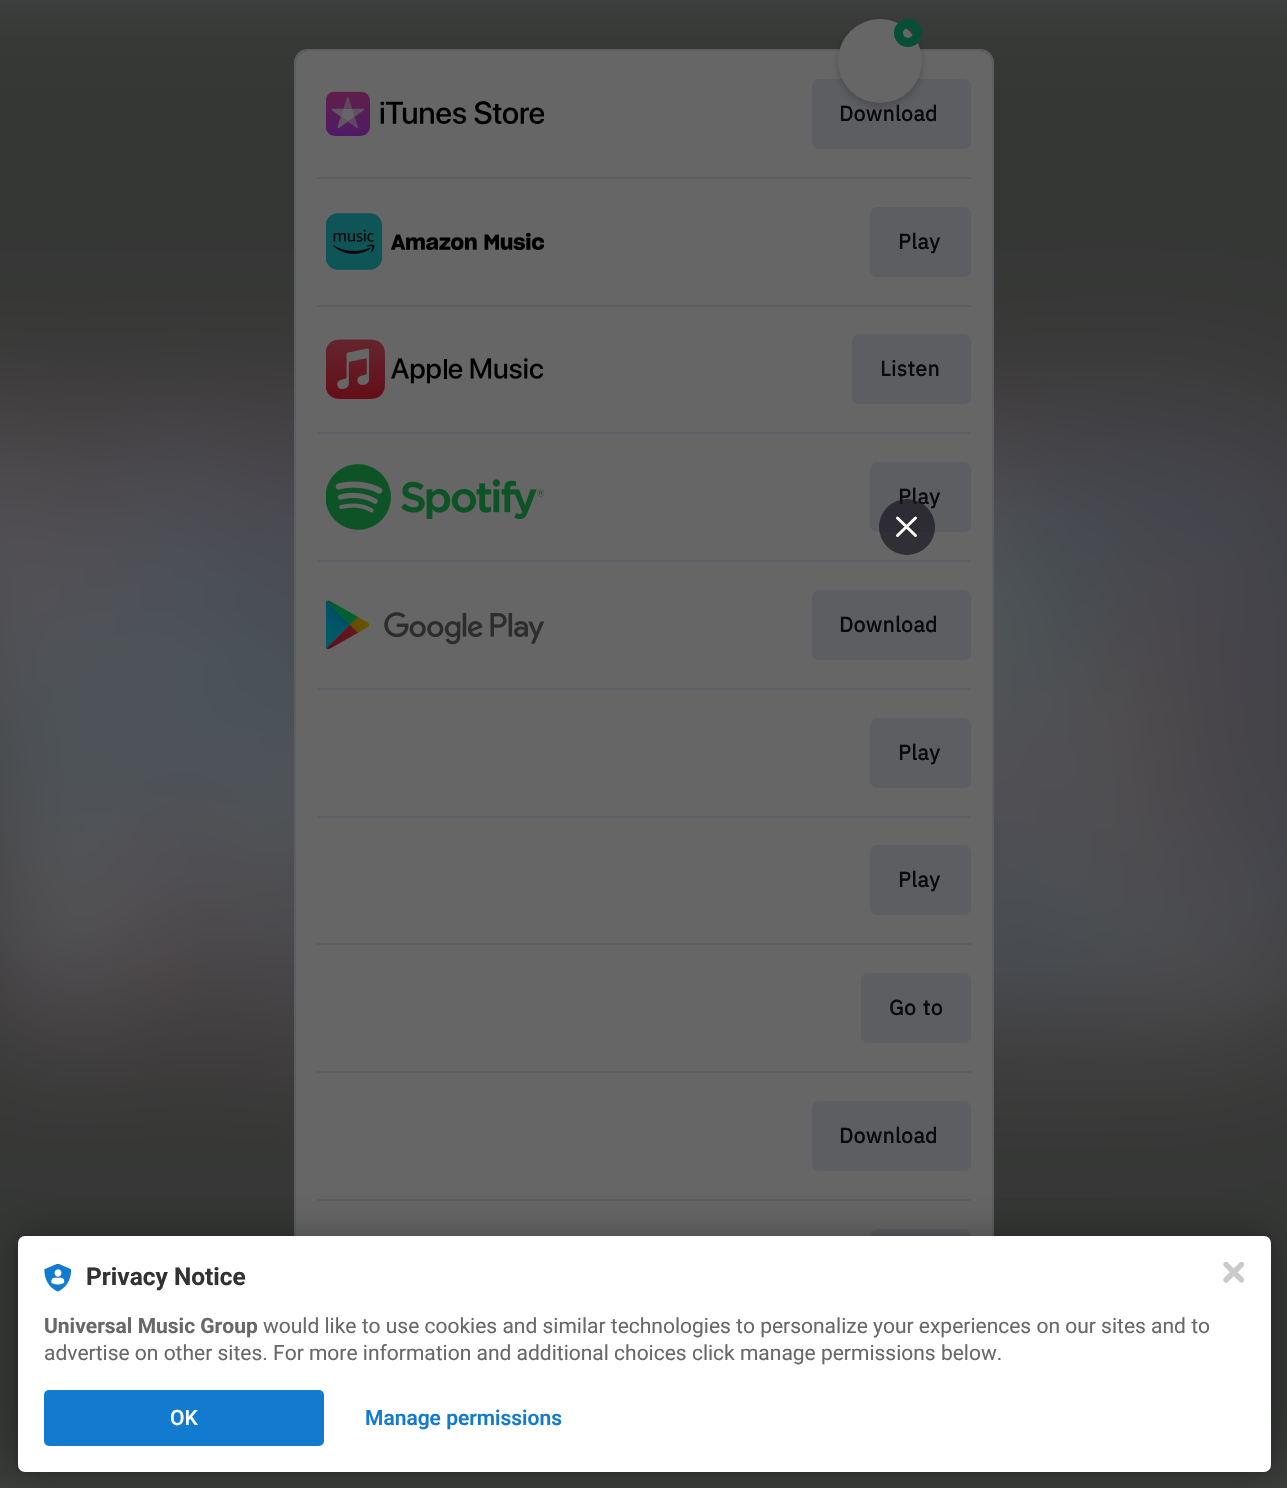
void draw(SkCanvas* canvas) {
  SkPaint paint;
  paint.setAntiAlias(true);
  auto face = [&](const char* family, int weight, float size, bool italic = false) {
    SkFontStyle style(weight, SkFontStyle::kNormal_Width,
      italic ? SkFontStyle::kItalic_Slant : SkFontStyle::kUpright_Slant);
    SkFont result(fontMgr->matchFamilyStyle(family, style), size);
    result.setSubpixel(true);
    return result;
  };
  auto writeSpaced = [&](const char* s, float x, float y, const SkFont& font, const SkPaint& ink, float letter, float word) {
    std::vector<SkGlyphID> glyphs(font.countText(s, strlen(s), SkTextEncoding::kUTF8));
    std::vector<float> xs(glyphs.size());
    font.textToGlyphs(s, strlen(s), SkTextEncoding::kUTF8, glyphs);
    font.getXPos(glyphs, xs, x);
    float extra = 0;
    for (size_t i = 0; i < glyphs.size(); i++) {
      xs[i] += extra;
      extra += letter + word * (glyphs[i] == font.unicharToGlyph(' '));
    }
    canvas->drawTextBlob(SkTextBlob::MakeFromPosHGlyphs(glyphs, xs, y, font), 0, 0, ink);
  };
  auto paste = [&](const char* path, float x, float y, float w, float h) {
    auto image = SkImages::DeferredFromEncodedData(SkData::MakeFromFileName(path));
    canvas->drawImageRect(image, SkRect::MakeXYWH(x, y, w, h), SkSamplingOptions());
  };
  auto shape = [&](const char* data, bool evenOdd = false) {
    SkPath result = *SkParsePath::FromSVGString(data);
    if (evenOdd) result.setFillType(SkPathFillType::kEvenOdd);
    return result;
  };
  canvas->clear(0xff666666);
  paste("img/1.png", 0, 0, 1287, 1488);
  paint.setStroke(true);
  paint.setStrokeWidth(2);
  paint.setColor(0xff5c5e61);
  canvas->drawRoundRect(SkRect::MakeXYWH(295, 50, 698, 1277), 13, 13, paint);
  paint.setStroke(false);
  paint.setColor(0xff666666);
  canvas->drawRoundRect(SkRect::MakeXYWH(296, 51, 696, 1276), 12, 12, paint);
  paint.setColor(0xff5c5e61);
  canvas->drawRoundRect(SkRect::MakeXYWH(812, 79, 159, 70), 7, 7, paint);
  paint.setColor(0x33000000);
  paint.setMaskFilter(SkMaskFilter::MakeBlur(kNormal_SkBlurStyle, 3.5f));
  canvas->drawRoundRect(SkRect::MakeXYWH(838, 23, 84, 84), 42, 42, paint);
  paint.setMaskFilter(nullptr);
  paint.setColor(0xff666666);
  canvas->drawCircle(880, 61, 42, paint);
  paint.setStroke(true);
  paint.setStrokeWidth(9);
  paint.setColor(0xff054f36);
  canvas->drawCircle(908, 33, 9.5f, paint);
  paste("img/2.png", 326, 91, 218, 45);
  paint.setStroke(false);
  paint.setColor(0xff5c5e61);
  canvas->drawRect(SkRect::MakeXYWH(317, 177, 654, 2), paint);
  paste("img/3.png", 326, 213, 218, 57);
  canvas->drawRoundRect(SkRect::MakeXYWH(870, 207, 101, 70), 7, 7, paint);
  canvas->drawRect(SkRect::MakeXYWH(317, 305, 654, 2), paint);
  paste("img/4.png", 326, 339, 218, 60);
  canvas->drawRoundRect(SkRect::MakeXYWH(852, 334, 119, 70), 7, 7, paint);
  canvas->drawRect(SkRect::MakeXYWH(317, 432, 654, 2), paint);
  paste("img/5.png", 326, 464, 218, 66);
  canvas->drawRoundRect(SkRect::MakeXYWH(870, 462, 101, 70), 7, 7, paint);
  canvas->drawRect(SkRect::MakeXYWH(317, 560, 654, 2), paint);
  paste("img/6.png", 326, 600, 218, 49);
  canvas->drawRoundRect(SkRect::MakeXYWH(812, 590, 159, 70), 7, 7, paint);
  canvas->drawRect(SkRect::MakeXYWH(317, 688, 654, 2), paint);
  canvas->drawRoundRect(SkRect::MakeXYWH(870, 718, 101, 70), 7, 7, paint);
  canvas->drawRect(SkRect::MakeXYWH(317, 816, 654, 2), paint);
  canvas->drawRoundRect(SkRect::MakeXYWH(870, 845, 101, 70), 7, 7, paint);
  canvas->drawRect(SkRect::MakeXYWH(317, 943, 654, 2), paint);
  canvas->drawRoundRect(SkRect::MakeXYWH(861, 973, 110, 70), 7, 7, paint);
  canvas->drawRect(SkRect::MakeXYWH(317, 1071, 654, 2), paint);
  canvas->drawRoundRect(SkRect::MakeXYWH(812, 1101, 159, 70), 7, 7, paint);
  canvas->drawRect(SkRect::MakeXYWH(317, 1199, 654, 2), paint);
  canvas->drawRoundRect(SkRect::MakeXYWH(870, 1229, 101, 70), 7, 7, paint);
  paint.setColor(0x1f000000);
  paint.setMaskFilter(SkMaskFilter::MakeBlur(kNormal_SkBlurStyle, 3.5f));
  canvas->drawRoundRect(SkRect::MakeXYWH(18, 1236, 1253, 236), 7, 7, paint);
  paint.setMaskFilter(nullptr);
  paint.setColor(0x4d000000);
  paint.setMaskFilter(SkMaskFilter::MakeBlur(kNormal_SkBlurStyle, 21));
  canvas->drawRoundRect(SkRect::MakeXYWH(18, 1236, 1253, 236), 7, 7, paint);
  paint.setMaskFilter(nullptr);
  paint.setColor(0xffffffff);
  canvas->drawRoundRect(SkRect::MakeXYWH(18, 1236, 1253, 236), 7, 7, paint);
  paste("img/7.png", 44, 1264, 28, 28);
  paint.setColor(0xff137bcf);
  canvas->drawRoundRect(SkRect::MakeXYWH(44, 1390, 280, 56), 5, 5, paint);
  paste("img/8.png", 1223, 1262, 21, 21);
  auto f0 = face("IBM Plex Sans", 700, 21);
  paint.setColor(0xff0a090d);
  {
    const struct { const char* s; float x, y; } items[] = {
      {"Download", 839, 121},
      {"Play", 898, 249},
      {"Listen", 880, 376},
      {"Play", 898, 504},
    };
    for (auto [s, x, y] : items) {
      writeSpaced(s, x, y, f0, paint, 0.5f, 0);
    }
  }
  paint.setColor(0xb3181721);
  canvas->drawCircle(907, 527, 28, paint);
  paint.setStroke(true);
  paint.setStrokeWidth(3);
  paint.setStrokeCap(SkPaint::kRound_Cap);
  paint.setStrokeJoin(SkPaint::kRound_Join);
  paint.setColor(0xffffffff);
  canvas->drawPath(shape("M897.5 518L915.5 535.5M897.5 535.5L915.5 518"), paint);
  paint.setStroke(false);
  paint.setColor(0xff0a090d);
  {
    const struct { const char* s; float x, y; } items[] = {
      {"Download", 839, 632},
      {"Play", 898, 760},
      {"Play", 898, 887},
    };
    for (auto [s, x, y] : items) {
      writeSpaced(s, x, y, f0, paint, 0.5f, 0);
    }
  }
  writeSpaced("Go to", 889, 1015, f0, paint, 0.5f, 1);
  writeSpaced("Download", 839, 1143, f0, paint, 0.5f, 0);
  auto f1 = face("Roboto", 700, 24.5f);
  paint.setColor(0xff323232);
  canvas->drawString("Privacy Notice", 86, 1285, f1, paint);
  auto f2 = face("Roboto", 700, 21);
  paint.setColor(0xff686868);
  canvas->drawString("Universal Music Group", 44, 1333, f2, paint);
  auto f3 = face("Roboto", 400, 21);
  canvas->drawString("would like to use cookies and similar technologies to personalize your experiences on our sites and to", 263, 1333, f3, paint);
  canvas->drawString("advertise on other sites. For more information and additional choices click manage permissions below.", 44, 1360, f3, paint);
  auto f4 = face("Roboto", 500, 21);
  paint.setColor(0xffffffff);
  canvas->drawString("OK", 170, 1425, f4, paint);
  auto f5 = face("Roboto", 600, 21);
  paint.setColor(0xff137bcf);
  canvas->drawString("Manage permissions", 365, 1425, f5, paint);
}
